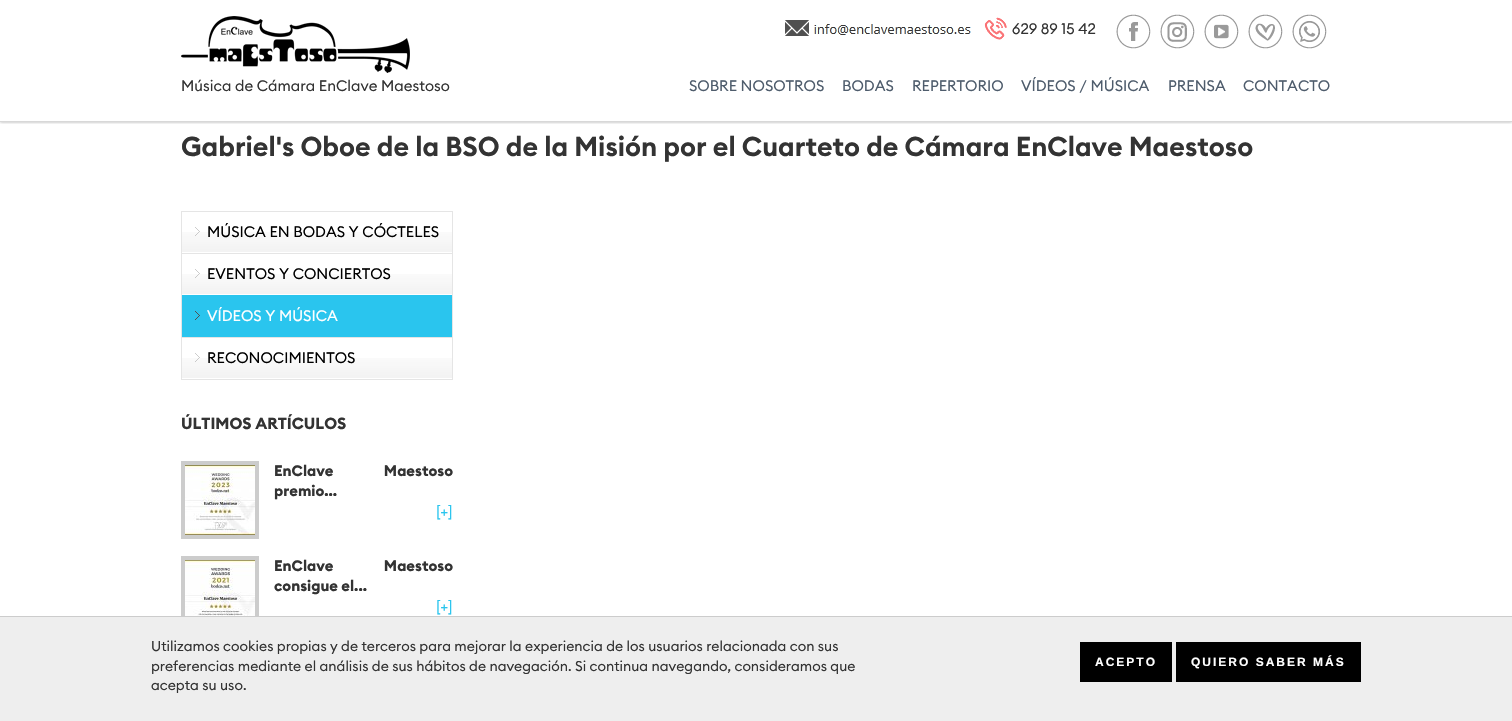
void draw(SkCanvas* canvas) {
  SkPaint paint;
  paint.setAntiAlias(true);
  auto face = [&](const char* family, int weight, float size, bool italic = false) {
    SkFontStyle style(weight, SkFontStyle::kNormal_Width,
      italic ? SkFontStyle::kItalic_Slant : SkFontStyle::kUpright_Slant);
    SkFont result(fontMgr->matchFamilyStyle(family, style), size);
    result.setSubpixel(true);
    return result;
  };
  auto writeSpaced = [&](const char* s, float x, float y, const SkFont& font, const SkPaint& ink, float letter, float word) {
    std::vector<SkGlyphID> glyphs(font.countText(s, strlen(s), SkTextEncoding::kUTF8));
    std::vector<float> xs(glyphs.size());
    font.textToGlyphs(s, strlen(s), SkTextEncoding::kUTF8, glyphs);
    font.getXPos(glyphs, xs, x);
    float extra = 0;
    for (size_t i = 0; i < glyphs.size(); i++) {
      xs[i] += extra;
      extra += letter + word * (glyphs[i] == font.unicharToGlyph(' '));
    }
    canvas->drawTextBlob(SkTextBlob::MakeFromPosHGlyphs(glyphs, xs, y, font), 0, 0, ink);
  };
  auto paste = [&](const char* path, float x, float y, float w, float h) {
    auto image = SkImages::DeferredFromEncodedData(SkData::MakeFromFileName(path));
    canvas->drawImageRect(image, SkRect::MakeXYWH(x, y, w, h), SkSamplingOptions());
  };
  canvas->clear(0xffffffff);
  canvas->save();
  canvas->clipRect(SkRect::MakeXYWH(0, 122, 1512, 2));
  paint.setColor(0x54000000);
  paint.setMaskFilter(SkMaskFilter::MakeBlur(kNormal_SkBlurStyle, 1.5f));
  canvas->drawRect(SkRect::MakeXYWH(0, 0, 1512, 122), paint);
  paint.setMaskFilter(nullptr);
  canvas->restore();
  paint.setColor(0xffd8d8d8);
  canvas->drawRect(SkRect::MakeXYWH(0, 121, 1512, 1), paint);
  paste("img/1.png", 181, 16, 229, 57);
  paste("img/2.png", 785, 20, 24, 16);
  paste("img/3.png", 814, 24, 157, 11);
  paste("img/4.png", 984, 17, 23, 23);
  paste("img/5.png", 1116, 14, 35, 35);
  paste("img/6.png", 1160, 14, 35, 35);
  paste("img/7.png", 1204, 14, 35, 35);
  paste("img/8.png", 1248, 14, 35, 35);
  paste("img/9.png", 1292, 14, 35, 35);
  {
    const struct { float x, y, w, h; SkColor color; } items[] = {
      {452, 211, 1, 169, 0xffe5e5e5},
      {181, 379, 272, 1, 0xffe5e5e5},
      {181, 211, 1, 169, 0xffe5e5e5},
    };
    for (auto [x, y, w, h, color] : items) {
      paint.setColor(color);
      canvas->drawRect(SkRect::MakeXYWH(x, y, w, h), paint);
    }
  }
  paste("img/10.png", 182, 232, 270, 20);
  canvas->drawRect(SkRect::MakeXYWH(182, 211, 270, 1), paint);
  paste("img/11.png", 195, 227, 5, 9);
  paste("img/10.png", 182, 274, 270, 20);
  canvas->drawRect(SkRect::MakeXYWH(182, 253, 270, 1), paint);
  paste("img/11.png", 195, 269, 5, 9);
  paint.setColor(0xff2ac5ee);
  canvas->drawRect(SkRect::MakeXYWH(182, 295, 270, 42), paint);
  paste("img/12.png", 195, 311, 5, 9);
  paste("img/10.png", 182, 358, 270, 20);
  paint.setColor(0xffe5e5e5);
  canvas->drawRect(SkRect::MakeXYWH(182, 337, 270, 1), paint);
  paste("img/11.png", 195, 353, 5, 9);
  paint.setStroke(true);
  paint.setStrokeWidth(4);
  paint.setColor(0xffcccccc);
  canvas->drawRect(SkRect::MakeXYWH(183, 463, 74, 74), paint);
  paste("img/13.png", 185, 465, 70, 70);
  canvas->drawRect(SkRect::MakeXYWH(183, 558, 74, 74), paint);
  paste("img/14.png", 185, 560, 70, 56);
  paint.setStroke(false);
  {
    const struct { float x, y, w, h; SkColor color; } items[] = {
      {0, 617, 1512, 104, 0xffeeeeee},
      {0, 616, 1512, 1, 0xffcccccc},
      {1080, 642, 92, 40, 0xff000000},
      {1176, 642, 185, 40, 0xff000000},
    };
    for (auto [x, y, w, h, color] : items) {
      paint.setColor(color);
      canvas->drawRect(SkRect::MakeXYWH(x, y, w, h), paint);
    }
  }
  auto f0 = face("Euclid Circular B", 400, 15);
  paint.setColor(0xff333333);
  canvas->drawString("Música de Cámara EnClave Maestoso", 181, 91, f0, paint);
  canvas->drawString("629 89 15 42", 1012, 34, f0, paint);
  paint.setColor(0xff4e5c6c);
  {
    const struct { const char* s; float x, y; } items[] = {
      {"SOBRE NOSOTROS", 689, 91},
      {"BODAS", 842, 91},
      {"REPERTORIO", 912, 91},
      {"VÍDEOS / MÚSICA", 1021, 91},
      {"PRENSA", 1168, 91},
      {"CONTACTO", 1243, 91},
    };
    for (auto [s, x, y] : items) {
      canvas->drawString(s, x, y, f0, paint);
    }
  }
  auto f1 = face("Euclid Circular B", 600, 27);
  paint.setColor(0xff333333);
  canvas->drawString("Gabriel's Oboe de la BSO de la Misión por el Cuarteto de Cámara EnClave Maestoso", 181, 156, f1, paint);
  paint.setColor(0xff000000);
  canvas->drawString("MÚSICA EN BODAS Y CÓCTELES", 207, 237, f0, paint);
  canvas->drawString("EVENTOS Y CONCIERTOS", 207, 279, f0, paint);
  paint.setColor(0xffffffff);
  canvas->drawString("VÍDEOS Y MÚSICA", 207, 321, f0, paint);
  paint.setColor(0xff000000);
  canvas->drawString("RECONOCIMIENTOS", 207, 363, f0, paint);
  auto f2 = face("Euclid Circular B", 700, 16);
  paint.setColor(0xff333333);
  canvas->drawString("ÚLTIMOS ARTÍCULOS", 181, 429, f2, paint);
  auto f3 = face("Euclid Circular B", 700, 15);
  writeSpaced("EnClave Maestoso", 274, 476, f3, paint, 0, 47);
  canvas->drawString("premio...", 274, 496, f3, paint);
  paint.setColor(0xff2ac5ee);
  canvas->drawString("[+]", 436, 517, f0, paint);
  paint.setColor(0xff333333);
  writeSpaced("EnClave Maestoso", 274, 571, f3, paint, 0, 47);
  canvas->drawString("consigue el...", 274, 591, f3, paint);
  paint.setColor(0xff2ac5ee);
  canvas->drawString("[+]", 436, 612, f0, paint);
  auto f4 = face("Euclid Circular B", 400, 14);
  paint.setColor(0xff333333);
  {
    const struct { const char* s; float x, y; } items[] = {
      {"Utilizamos cookies propias y de terceros para mejorar la experiencia de los usuarios relacionada con sus", 151, 651},
      {"preferencias mediante el análisis de sus hábitos de navegación. Si continua navegando, consideramos que", 151, 671},
      {"acepta su uso.", 151, 690},
    };
    for (auto [s, x, y] : items) {
      canvas->drawString(s, x, y, f4, paint);
    }
  }
  auto f5 = face("Liberation Sans", 700, 12);
  paint.setColor(0xffffffff);
  writeSpaced("ACEPTO", 1095, 666, f5, paint, 2, 0);
  writeSpaced("QUIERO SABER MÁS", 1191, 666, f5, paint, 2, 0);
}
